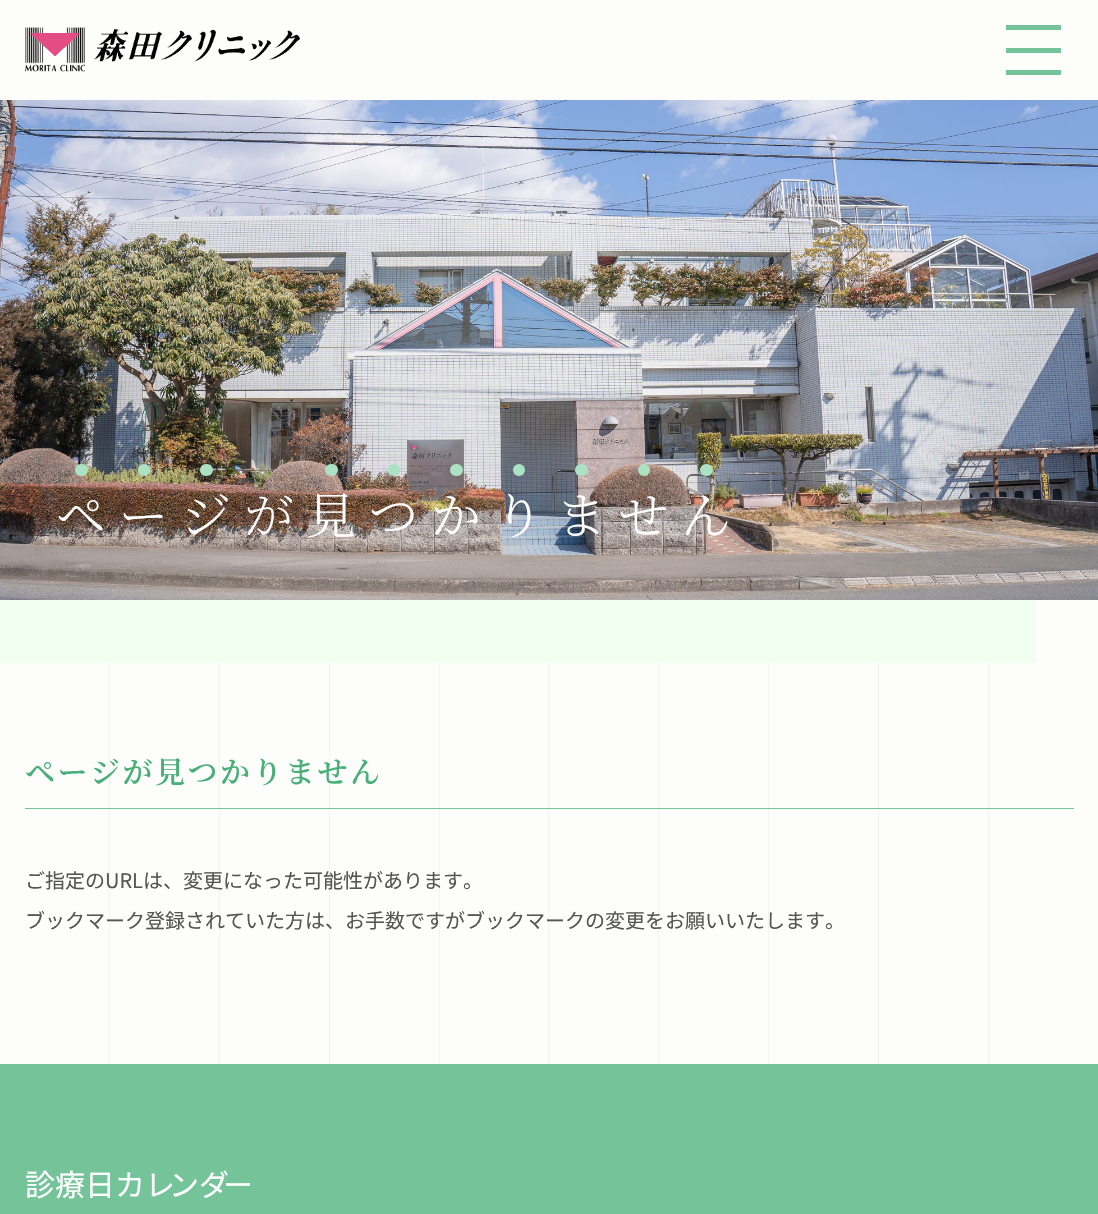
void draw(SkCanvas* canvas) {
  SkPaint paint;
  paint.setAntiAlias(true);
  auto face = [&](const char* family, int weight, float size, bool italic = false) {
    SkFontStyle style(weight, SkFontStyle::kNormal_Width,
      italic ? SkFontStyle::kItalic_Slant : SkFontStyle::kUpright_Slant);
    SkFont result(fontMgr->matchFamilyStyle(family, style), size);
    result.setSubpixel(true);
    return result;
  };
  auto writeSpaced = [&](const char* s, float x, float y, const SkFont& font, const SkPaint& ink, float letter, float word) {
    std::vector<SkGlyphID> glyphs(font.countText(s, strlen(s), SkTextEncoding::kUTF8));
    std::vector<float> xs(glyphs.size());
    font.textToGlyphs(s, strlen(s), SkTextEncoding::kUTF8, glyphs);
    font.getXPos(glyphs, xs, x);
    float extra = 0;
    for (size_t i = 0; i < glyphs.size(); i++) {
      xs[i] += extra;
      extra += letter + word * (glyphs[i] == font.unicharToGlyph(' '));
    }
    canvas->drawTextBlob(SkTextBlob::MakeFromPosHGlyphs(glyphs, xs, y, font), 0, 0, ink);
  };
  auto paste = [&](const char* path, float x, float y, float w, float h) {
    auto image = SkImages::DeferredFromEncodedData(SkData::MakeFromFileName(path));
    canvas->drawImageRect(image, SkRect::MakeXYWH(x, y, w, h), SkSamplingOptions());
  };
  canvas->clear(0xfffdfdfc);
  paste("img/1.png", 25, 27, 275, 45);
  {
    const struct { float x, y, w, h; SkColor color; } items[] = {
      {1006, 25, 55, 5, 0xff75c399},
      {1006, 48, 55, 5, 0xff75c399},
      {1006, 70, 55, 5, 0xff75c399},
    };
    for (auto [x, y, w, h, color] : items) {
      paint.setColor(color);
      canvas->drawRect(SkRect::MakeXYWH(x, y, w, h), paint);
    }
  }
  paste("img/2.png", 0, 100, 1098, 500);
  paint.setColor(0xffabe2c4);
  canvas->drawCircle(144, 470, 6, paint);
  canvas->drawRoundRect(SkRect::MakeXYWH(200, 464, 13, 12), 6, 6, paint);
  canvas->drawCircle(394, 470, 6, paint);
  canvas->drawRoundRect(SkRect::MakeXYWH(450, 464, 13, 12), 6, 6, paint);
  canvas->drawCircle(519, 470, 6, paint);
  canvas->drawRoundRect(SkRect::MakeXYWH(575, 464, 13, 12), 6, 6, paint);
  canvas->drawCircle(644, 470, 6, paint);
  canvas->drawRoundRect(SkRect::MakeXYWH(700, 464, 13, 12), 6, 6, paint);
  canvas->drawRoundRect(SkRect::MakeXYWH(75, 464, 13, 12), 6, 6, paint);
  canvas->drawRoundRect(SkRect::MakeXYWH(325, 464, 13, 12), 6, 6, paint);
  {
    const struct { float x, y, w, h; SkColor color; } items[] = {
      {0, 600, 1036, 63, 0xfff0fff0},
      {109, 663, 1, 401, 0xfff3f3f3},
      {219, 663, 1, 401, 0xfff3f3f3},
      {329, 663, 1, 401, 0xfff3f3f3},
      {439, 663, 1, 401, 0xfff3f3f3},
      {548, 663, 1, 401, 0xfff3f3f3},
      {658, 663, 1, 401, 0xfff3f3f3},
      {768, 663, 1, 401, 0xfff3f3f3},
      {878, 663, 1, 401, 0xfff3f3f3},
      {988, 663, 1, 401, 0xfff3f3f3},
      {25, 808, 1049, 1, 0xff75c399},
      {0, 1064, 1098, 150, 0xff75c399},
    };
    for (auto [x, y, w, h, color] : items) {
      paint.setColor(color);
      canvas->drawRect(SkRect::MakeXYWH(x, y, w, h), paint);
    }
  }
  auto f0 = face("Noto Serif JP", 300, 50);
  paint.setColor(0xffffffff);
  writeSpaced("ページ", 56, 534, f0, paint, 12.5f, 0);
  auto f1 = face("Noto Serif JP", 200, 50);
  writeSpaced("が", 244, 534, f1, paint, 12.5f, 0);
  writeSpaced("見つかりません", 306, 534, f0, paint, 12.5f, 0);
  auto f2 = face("Noto Serif JP", 600, 30);
  paint.setColor(0xff49af78);
  writeSpaced("ページが見つかりません", 25, 783, f2, paint, 2.5f, 0);
  auto f3 = face("Noto Sans JP", 400, 20);
  paint.setColor(0xff555555);
  canvas->drawString("ご指定のURLは、変更になった可能性があります。", 25, 888, f3, paint);
  canvas->drawString("ブックマーク登録されていた方は、お手数ですがブックマークの変更をお願いいたします。", 25, 928, f3, paint);
  auto f4 = face("Noto Sans JP", 400, 30);
  paint.setColor(0xffffffff);
  canvas->drawString("診療日カレ", 25, 1196, f4, paint);
  canvas->drawString("ンダ", 169, 1196, f4, paint);
  canvas->drawString("ー", 223, 1196, f4, paint);
}
